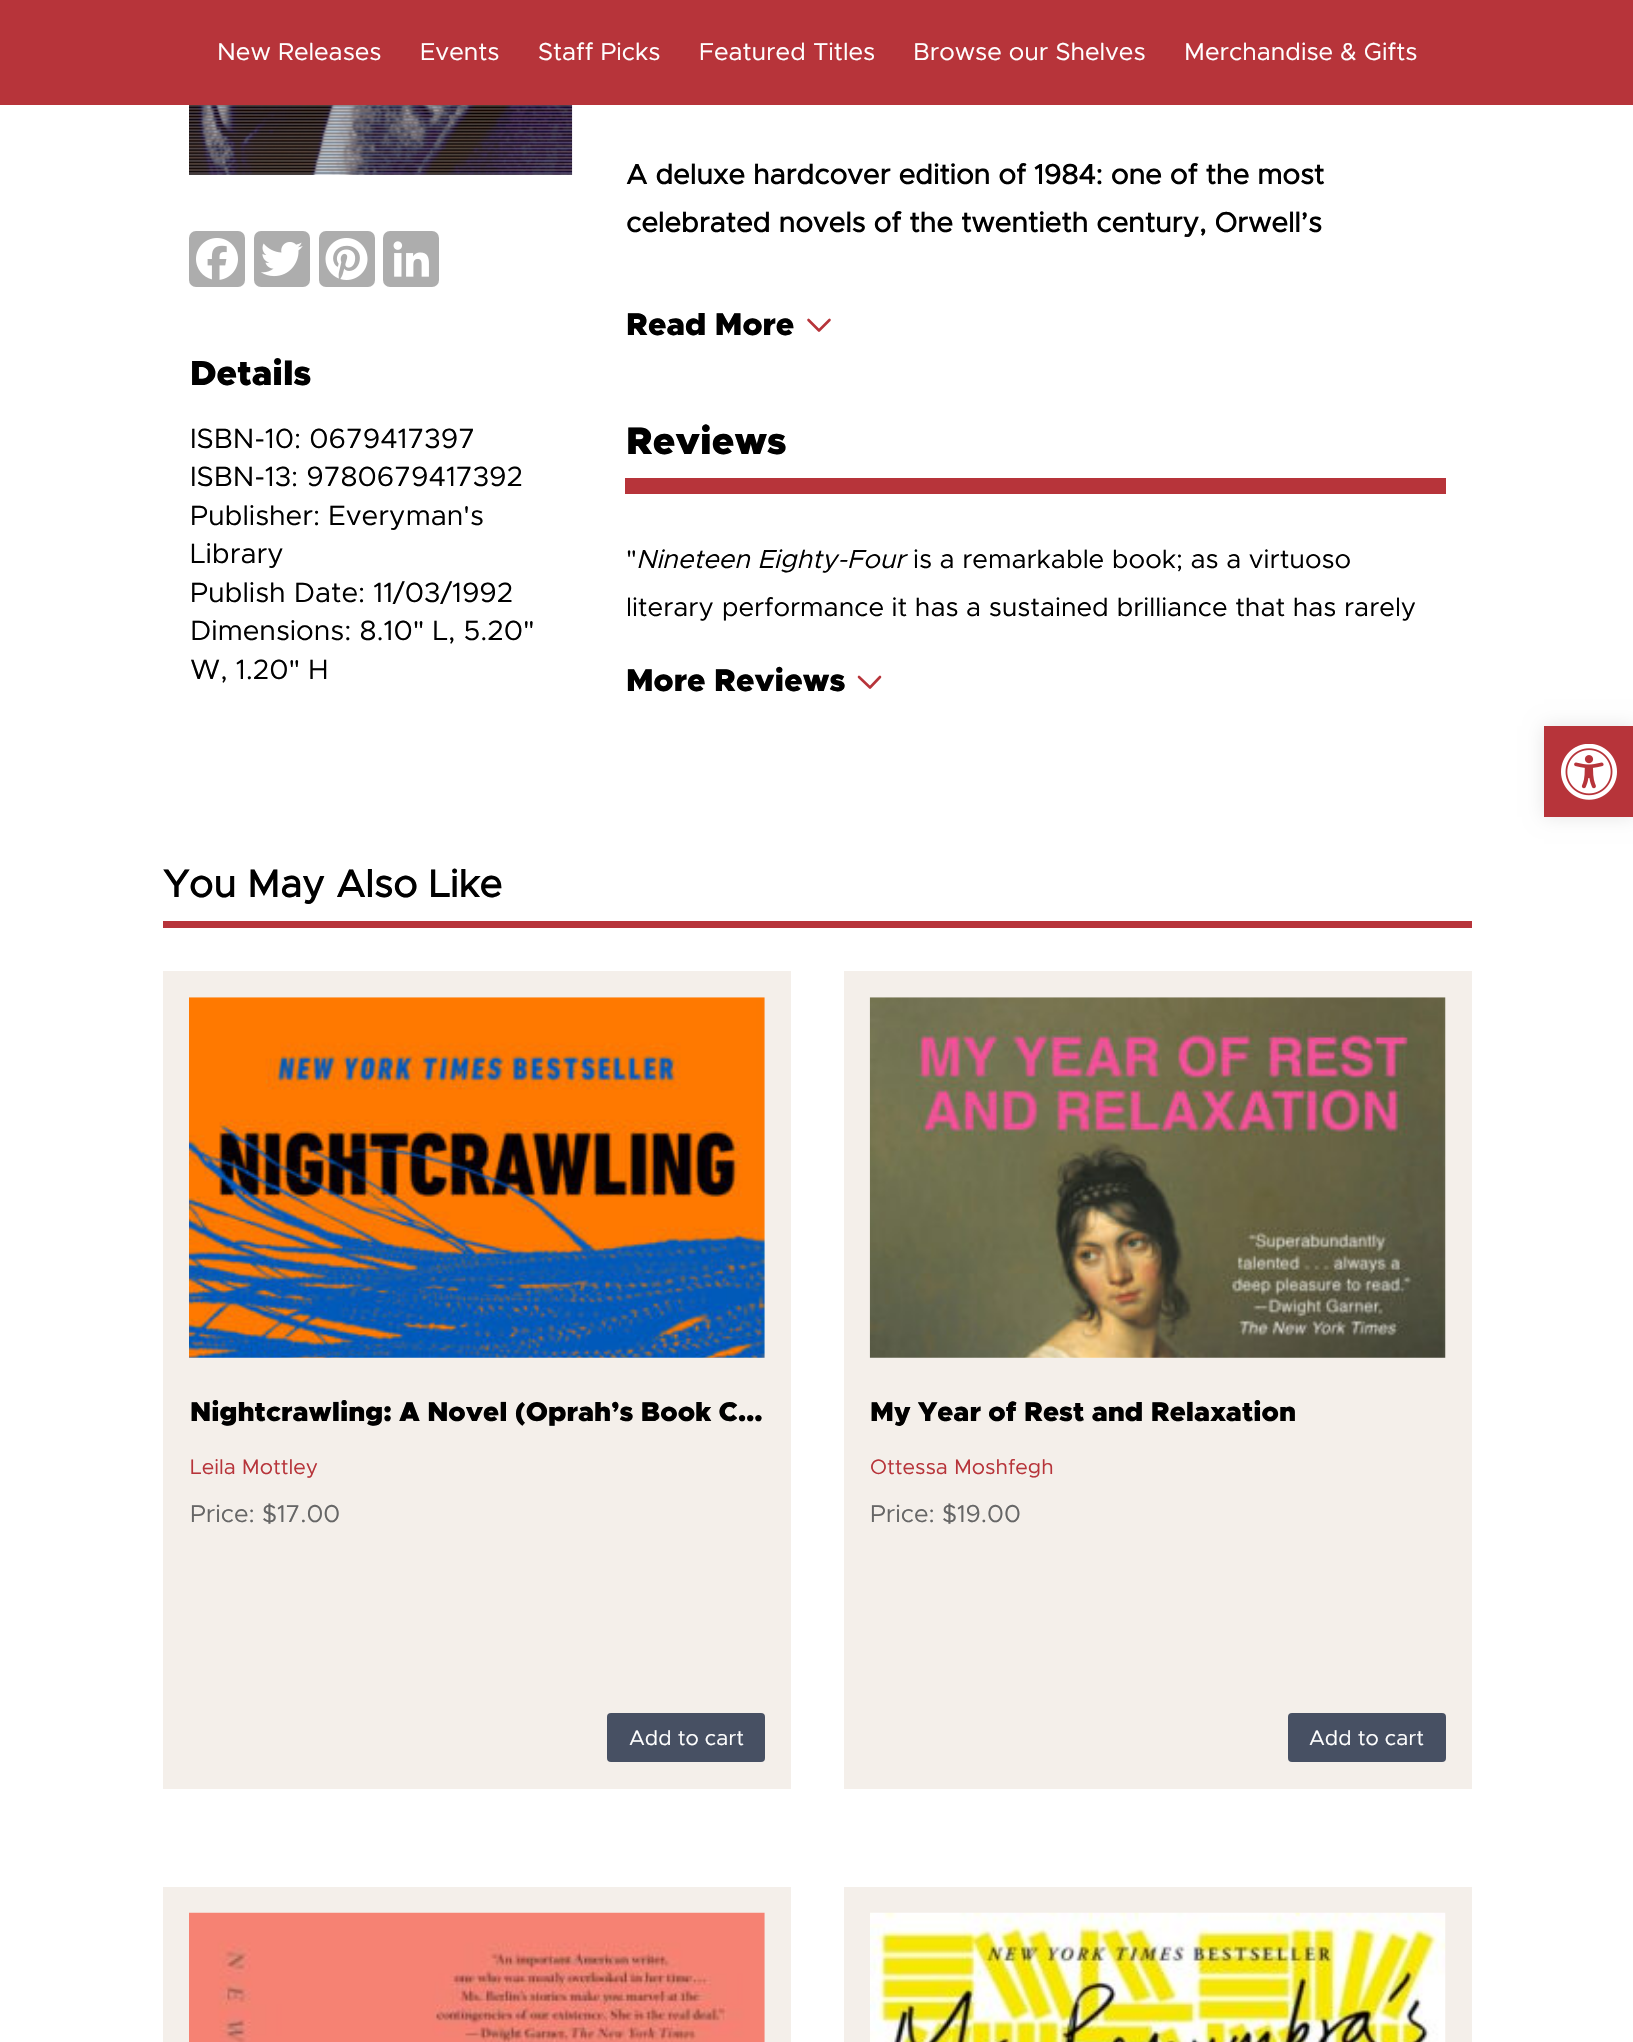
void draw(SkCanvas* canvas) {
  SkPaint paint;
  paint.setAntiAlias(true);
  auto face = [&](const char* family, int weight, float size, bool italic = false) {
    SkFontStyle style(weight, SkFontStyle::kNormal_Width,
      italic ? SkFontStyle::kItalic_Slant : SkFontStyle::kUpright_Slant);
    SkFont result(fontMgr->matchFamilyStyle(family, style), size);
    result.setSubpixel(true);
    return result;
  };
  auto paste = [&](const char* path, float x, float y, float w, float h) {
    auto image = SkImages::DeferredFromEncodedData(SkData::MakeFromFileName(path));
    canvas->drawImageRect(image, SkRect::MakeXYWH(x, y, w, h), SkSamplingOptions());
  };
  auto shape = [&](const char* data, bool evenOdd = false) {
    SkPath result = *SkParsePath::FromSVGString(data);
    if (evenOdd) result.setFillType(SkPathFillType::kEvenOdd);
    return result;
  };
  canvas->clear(0xffffffff);
  paint.setColor(0xffb7343a);
  canvas->drawRect(SkRect::MakeXYWH(0, 0, 1633, 105), paint);
  paste("img/1.png", 189, 105, 384, 70);
  paint.setColor(0xffadadad);
  canvas->drawRoundRect(SkRect::MakeXYWH(189, 231, 56, 56), 7, 7, paint);
  paste("img/2.png", 196, 238, 42, 42);
  canvas->drawRoundRect(SkRect::MakeXYWH(254, 231, 56, 56), 7, 7, paint);
  paste("img/3.png", 261, 242, 42, 35);
  canvas->drawRoundRect(SkRect::MakeXYWH(319, 231, 56, 56), 7, 7, paint);
  paste("img/4.png", 325, 238, 43, 42);
  canvas->drawRoundRect(SkRect::MakeXYWH(383, 231, 56, 56), 7, 7, paint);
  paste("img/5.png", 393, 241, 36, 36);
  paint.setStroke(true);
  paint.setStrokeWidth(2.6f);
  paint.setStrokeCap(SkPaint::kRound_Cap);
  paint.setStrokeJoin(SkPaint::kRound_Join);
  paint.setColor(0xffb7343a);
  canvas->drawPath(shape("M808.5 320L819 330.5L829.5 320"), paint);
  paint.setStroke(false);
  canvas->drawRect(SkRect::MakeXYWH(625, 478, 821, 16), paint);
  paint.setStroke(true);
  canvas->drawPath(shape("M859 677L870 687.5L880 677"), paint);
  paint.setStroke(false);
  canvas->drawRect(SkRect::MakeXYWH(163, 921, 1309, 7), paint);
  paint.setColor(0xfff4efea);
  canvas->drawRect(SkRect::MakeXYWH(163, 971, 628, 818), paint);
  paste("img/6.png", 189, 997, 576, 361);
  paint.setColor(0xff475063);
  canvas->drawRoundRect(SkRect::MakeXYWH(607, 1713, 158, 49), 4, 4, paint);
  paint.setColor(0xfff4efea);
  canvas->drawRect(SkRect::MakeXYWH(844, 971, 628, 818), paint);
  paste("img/7.png", 869, 997, 577, 361);
  paint.setColor(0xff475063);
  canvas->drawRoundRect(SkRect::MakeXYWH(1288, 1713, 158, 49), 4, 4, paint);
  paint.setColor(0xfff4efea);
  canvas->drawRect(SkRect::MakeXYWH(163, 1887, 628, 155), paint);
  paste("img/8.png", 189, 1912, 576, 130);
  canvas->drawRect(SkRect::MakeXYWH(844, 1887, 628, 155), paint);
  paste("img/9.png", 870, 1912, 576, 130);
  paint.setColor(0x1a000000);
  paint.setMaskFilter(SkMaskFilter::MakeBlur(kNormal_SkBlurStyle, 9));
  canvas->drawRect(SkRect::MakeXYWH(1544, 726, 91, 91), paint);
  paint.setMaskFilter(nullptr);
  paint.setColor(0xffb7343a);
  canvas->drawRect(SkRect::MakeXYWH(1544, 726, 89, 91), paint);
  paste("img/10.png", 1561, 744, 56, 56);
  auto f0 = face("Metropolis", 400, 24.5f);
  paint.setColor(0xffffffff);
  {
    const struct { const char* s; float x, y; } items[] = {
      {"New Releases", 217, 60},
      {"Events", 420, 60},
      {"Staff Picks", 538, 60},
      {"Featured Titles", 699, 60},
      {"Browse our Shelves", 913, 60},
      {"Merchandise & Gifts", 1184, 60},
    };
    for (auto [s, x, y] : items) {
      canvas->drawString(s, x, y, f0, paint);
    }
  }
  auto f1 = face("Metropolis", 900, 35);
  paint.setColor(0xff000000);
  canvas->drawString("Details", 190, 385, f1, paint);
  auto f2 = face("Metropolis", 400, 28);
  {
    const struct { const char* s; float x, y; } items[] = {
      {"ISBN-10: 0679417397", 190, 448},
      {"ISBN-13: 9780679417392", 190, 486},
      {"Publisher: Everyman's", 190, 525},
      {"Library", 190, 563},
      {"Publish Date: 11/03/1992", 190, 602},
      {"Dimensions: 8.10\" L, 5.20\"", 190, 640},
      {"W, 1.20\" H", 190, 679},
    };
    for (auto [s, x, y] : items) {
      canvas->drawString(s, x, y, f2, paint);
    }
  }
  auto f3 = face("Metropolis", 700, 28);
  canvas->drawString("A deluxe hardcover edition of 1984: one of the most", 626, 184, f3, paint);
  canvas->drawString("celebrated novels of the twentieth century, Orwell’s", 626, 232, f3, paint);
  {
    const SkColor colors[] = {0x00ffffff, 0xffffffff};
    const float stops[] = {0, 1};
    const SkPoint ends[] = {{1035, 233}, {1035, 285}};
    paint.setShader(SkGradientShader::MakeLinear(ends, colors, stops, 2, SkTileMode::kClamp));
    paint.setAlpha(255);
  }
  canvas->drawRect(SkRect::MakeXYWH(1184, 234, 19, 3), paint);
  auto f4 = face("Metropolis", 900, 31.5f);
  paint.setShader(nullptr);
  paint.setColor(0xff000000);
  canvas->drawString("Read More", 626, 335, f4, paint);
  auto f5 = face("Metropolis", 900, 38.5f);
  canvas->drawString("Reviews", 626, 454, f5, paint);
  auto f6 = face("Metropolis", 400, 26.25f);
  canvas->drawString("\"", 626, 568, f6, paint);
  auto f7 = face("Metropolis", 400, 26.25f, true);
  canvas->drawString("Nineteen Eighty-Four", 636, 568, f7, paint);
  canvas->drawString("is a remarkable book; as a virtuoso", 913, 568, f6, paint);
  canvas->drawString("literary performance it has a sustained brilliance that has rarely", 626, 616, f6, paint);
  canvas->drawString("More Reviews", 626, 691, f4, paint);
  auto f8 = face("Metropolis", 700, 38.5f);
  canvas->drawString("You May Also Like", 163, 897, f8, paint);
  auto f9 = face("Metropolis", 900, 27.3f);
  canvas->drawString("Nightcrawling: A Novel (Oprah’s Book C…", 190, 1421, f9, paint);
  auto f10 = face("Metropolis", 400, 21);
  paint.setColor(0xffb7343a);
  canvas->drawString("Leila Mottley", 190, 1474, f10, paint);
  paint.setColor(0xff666666);
  canvas->drawString("Price: $17.00", 190, 1522, f0, paint);
  paint.setColor(0xffffffff);
  canvas->drawString("Add to cart", 629, 1745, f10, paint);
  paint.setColor(0xff000000);
  canvas->drawString("My Year of Rest and Relaxation", 870, 1421, f9, paint);
  paint.setColor(0xffb7343a);
  canvas->drawString("Ottessa Moshfegh", 870, 1474, f10, paint);
  paint.setColor(0xff666666);
  canvas->drawString("Price: $19.00", 870, 1522, f0, paint);
  paint.setColor(0xffffffff);
  canvas->drawString("Add to cart", 1309, 1745, f10, paint);
}
